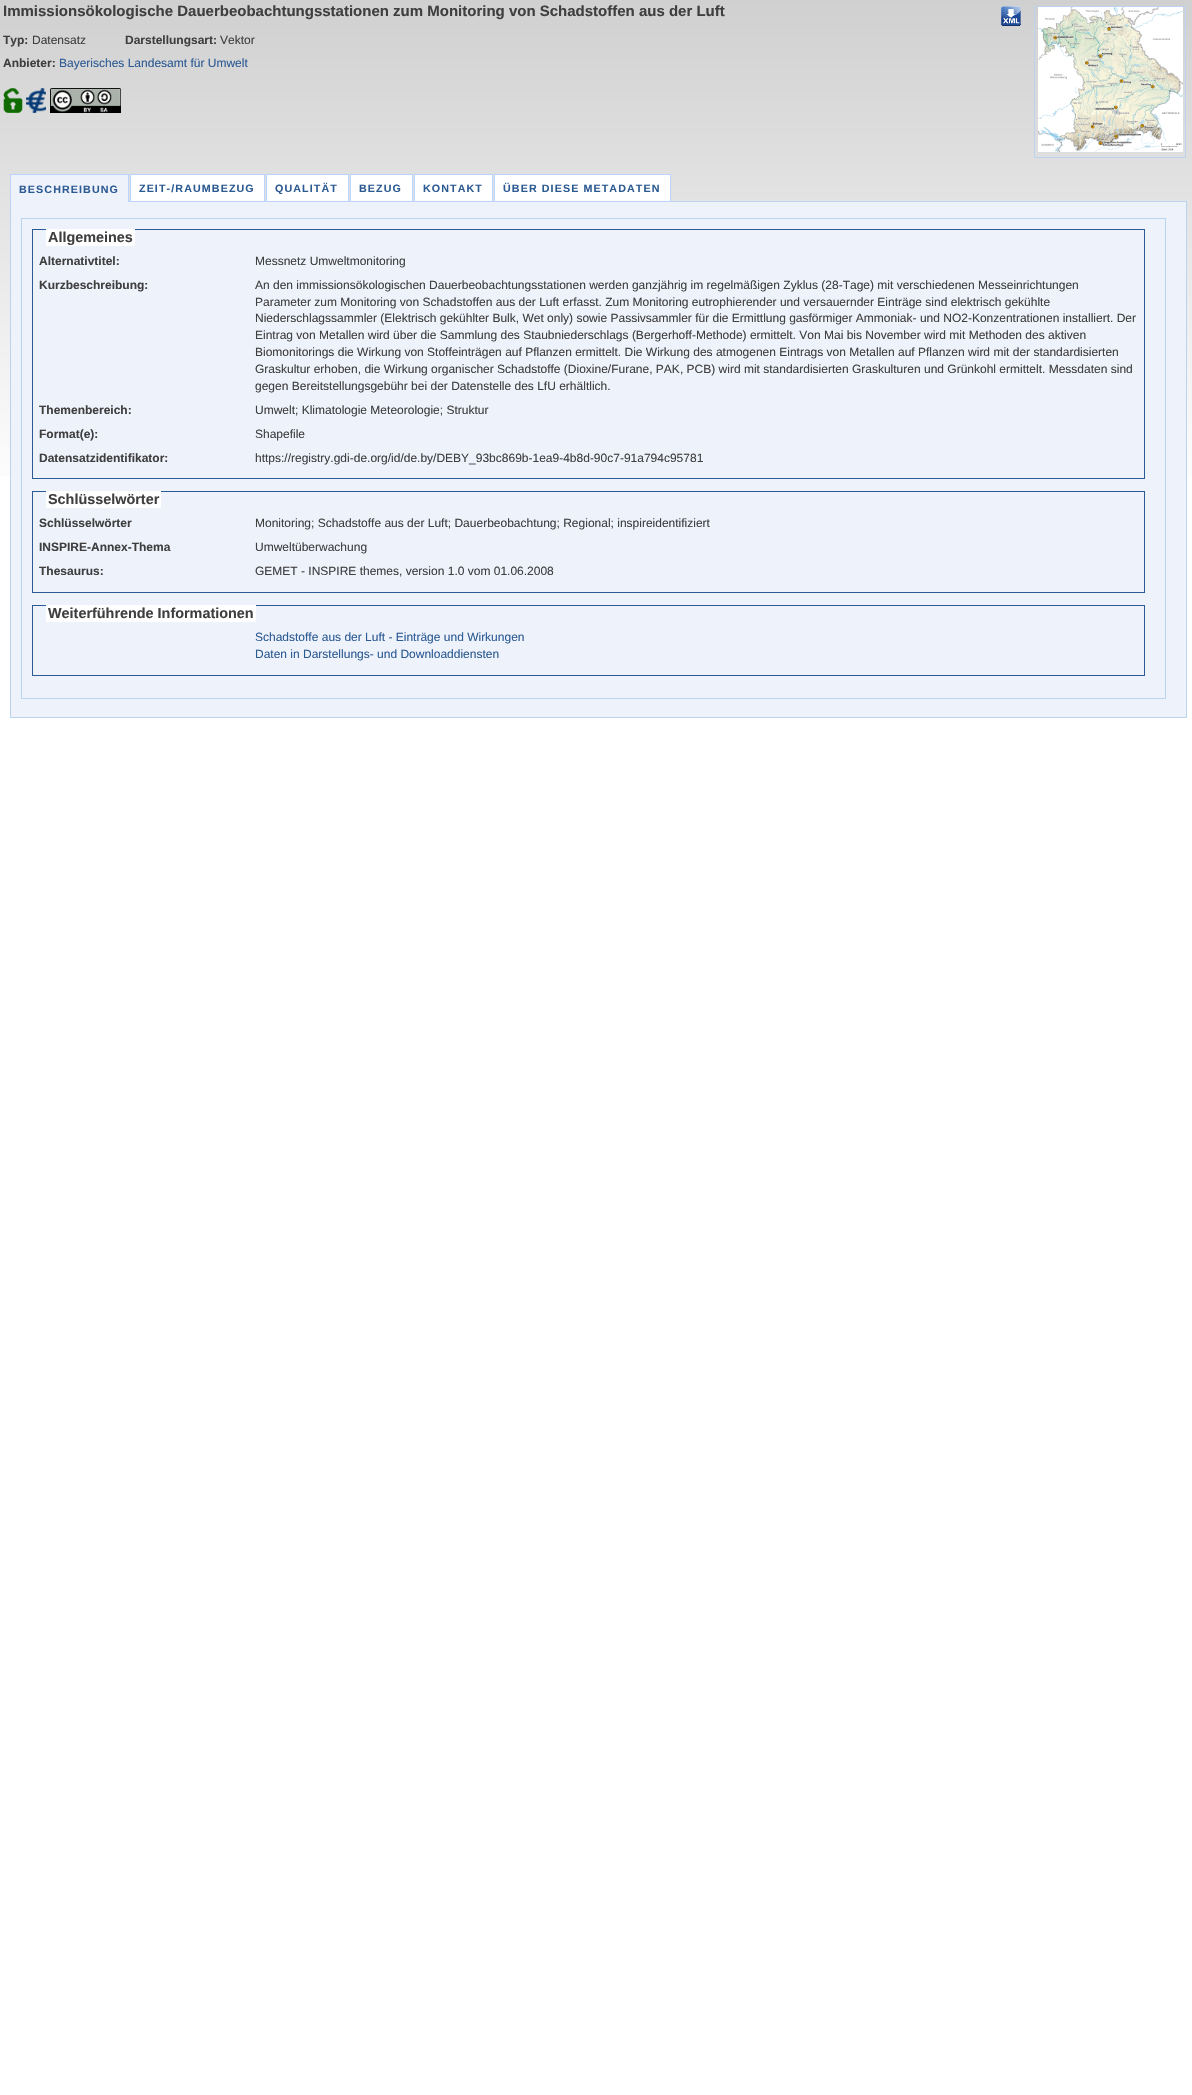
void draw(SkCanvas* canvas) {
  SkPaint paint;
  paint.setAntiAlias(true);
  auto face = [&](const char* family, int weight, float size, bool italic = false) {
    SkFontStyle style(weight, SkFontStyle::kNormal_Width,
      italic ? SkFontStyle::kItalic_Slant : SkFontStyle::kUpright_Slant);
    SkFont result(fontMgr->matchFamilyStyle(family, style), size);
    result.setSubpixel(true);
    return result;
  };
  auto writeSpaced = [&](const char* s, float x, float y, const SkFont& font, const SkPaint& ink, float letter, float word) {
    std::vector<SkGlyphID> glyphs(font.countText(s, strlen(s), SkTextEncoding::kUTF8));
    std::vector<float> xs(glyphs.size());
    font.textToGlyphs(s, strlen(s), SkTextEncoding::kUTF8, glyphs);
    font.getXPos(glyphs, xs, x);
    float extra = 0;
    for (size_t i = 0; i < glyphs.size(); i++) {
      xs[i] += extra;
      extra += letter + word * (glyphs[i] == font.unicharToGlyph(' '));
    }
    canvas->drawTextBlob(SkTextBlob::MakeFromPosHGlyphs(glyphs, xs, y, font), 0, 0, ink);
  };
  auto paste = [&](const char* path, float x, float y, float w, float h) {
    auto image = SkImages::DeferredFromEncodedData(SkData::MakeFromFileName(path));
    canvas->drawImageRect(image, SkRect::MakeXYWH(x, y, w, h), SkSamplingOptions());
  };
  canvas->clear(0xffffffff);
  {
    const SkColor colors[] = {0xffd0d0d0, 0xffffffff};
    const float stops[] = {0, 0.24f};
    const SkPoint ends[] = {{596, 0}, {596, 2095}};
    paint.setShader(SkGradientShader::MakeLinear(ends, colors, stops, 2, SkTileMode::kClamp));
    paint.setAlpha(255);
  }
  canvas->drawRect(SkRect::MakeXYWH(0, 0, 1192, 476), paint);
  paste("img/1.png", 3, 88, 20, 25);
  paste("img/2.png", 26, 88, 20, 25);
  paste("img/3.png", 50, 88, 71, 25);
  paste("img/4.png", 1001, 6, 20, 20);
  paint.setStroke(true);
  paint.setStrokeWidth(1);
  paint.setShader(nullptr);
  paint.setColor(0xffbbd3ef);
  canvas->drawRect(SkRect::MakeXYWH(1034.5f, 6.5f, 151, 151), paint);
  paste("img/5.png", 1038, 7, 145, 145);
  paint.setStroke(false);
  paint.setColor(0xffeef2fb);
  canvas->drawRect(SkRect::MakeXYWH(10.5f, 201.5f, 1176, 516), paint);
  paint.setStroke(true);
  paint.setColor(0xffbad4ef);
  canvas->drawRect(SkRect::MakeXYWH(10.5f, 201.5f, 1176, 516), paint);
  paint.setStroke(false);
  {
    const struct { float x, y, w, h; SkColor color; } items[] = {
      {11, 175, 117, 27, 0xffeef2fb},
      {10, 174, 119, 1, 0xffbbd3ff},
      {128, 174, 1, 28, 0xffbbd3ff},
      {10, 174, 1, 28, 0xffbbd3ff},
    };
    for (auto [x, y, w, h, color] : items) {
      paint.setColor(color);
      canvas->drawRect(SkRect::MakeXYWH(x, y, w, h), paint);
    }
  }
  paint.setColor(0xffffffff);
  canvas->drawRect(SkRect::MakeXYWH(130.5f, 174.5f, 134, 27), paint);
  paint.setStroke(true);
  paint.setColor(0xffbbd3ff);
  canvas->drawRect(SkRect::MakeXYWH(130.5f, 174.5f, 134, 27), paint);
  paint.setStroke(false);
  paint.setColor(0xffffffff);
  canvas->drawRect(SkRect::MakeXYWH(266.5f, 174.5f, 82, 27), paint);
  paint.setStroke(true);
  paint.setColor(0xffbbd3ff);
  canvas->drawRect(SkRect::MakeXYWH(266.5f, 174.5f, 82, 27), paint);
  paint.setStroke(false);
  paint.setColor(0xffffffff);
  canvas->drawRect(SkRect::MakeXYWH(350.5f, 174.5f, 62, 27), paint);
  paint.setStroke(true);
  paint.setColor(0xffbbd3ff);
  canvas->drawRect(SkRect::MakeXYWH(350.5f, 174.5f, 62, 27), paint);
  paint.setStroke(false);
  paint.setColor(0xffffffff);
  canvas->drawRect(SkRect::MakeXYWH(414.5f, 174.5f, 78, 27), paint);
  paint.setStroke(true);
  paint.setColor(0xffbbd3ff);
  canvas->drawRect(SkRect::MakeXYWH(414.5f, 174.5f, 78, 27), paint);
  paint.setStroke(false);
  paint.setColor(0xffffffff);
  canvas->drawRect(SkRect::MakeXYWH(494.5f, 174.5f, 176, 27), paint);
  paint.setStroke(true);
  paint.setColor(0xffbbd3ff);
  canvas->drawRect(SkRect::MakeXYWH(494.5f, 174.5f, 176, 27), paint);
  paint.setColor(0xffbad4ef);
  canvas->drawRect(SkRect::MakeXYWH(21.5f, 218.5f, 1144, 480), paint);
  paint.setColor(0xff2c5a93);
  canvas->drawRect(SkRect::MakeXYWH(32.5f, 229.5f, 1112, 249), paint);
  paint.setStroke(false);
  paint.setColor(0xffffffff);
  canvas->drawRect(SkRect::MakeXYWH(46, 229, 89, 17), paint);
  paint.setStroke(true);
  paint.setColor(0xff2c5a93);
  canvas->drawRect(SkRect::MakeXYWH(32.5f, 491.5f, 1112, 101), paint);
  paint.setStroke(false);
  paint.setColor(0xffffffff);
  canvas->drawRect(SkRect::MakeXYWH(46, 491, 115, 17), paint);
  paint.setStroke(true);
  paint.setColor(0xff2c5a93);
  canvas->drawRect(SkRect::MakeXYWH(32.5f, 605.5f, 1112, 70), paint);
  paint.setStroke(false);
  paint.setColor(0xffffffff);
  canvas->drawRect(SkRect::MakeXYWH(46, 605, 210, 17), paint);
  auto f0 = face("Liberation Sans", 700, 15);
  paint.setColor(0xff3f3f3f);
  canvas->drawString("Immissionsökologische Dauerbeobachtungsstationen zum Monitoring von Schadstoffen aus der Luft", 3, 16, f0, paint);
  auto f1 = face("Liberation Sans", 700, 12);
  canvas->drawString("Typ:", 3, 44, f1, paint);
  auto f2 = face("Liberation Sans", 400, 12);
  canvas->drawString("Datensatz", 32, 44, f2, paint);
  canvas->drawString("Darstellungsart:", 125, 44, f1, paint);
  canvas->drawString("Vektor", 220, 44, f2, paint);
  canvas->drawString("Anbieter:", 3, 67, f1, paint);
  paint.setColor(0xff2c5a93);
  canvas->drawString("Bayerisches Landesamt für Umwelt", 59, 67, f2, paint);
  auto f3 = face("Liberation Sans", 700, 10.7f);
  {
    const struct { const char* s; float x, y; } items[] = {
      {"BESCHREIBUNG", 19, 193},
      {"ZEIT-/RAUMBEZUG", 139, 192},
      {"QUALITÄT", 275, 192},
      {"BEZUG", 359, 192},
      {"KONTAKT", 423, 192},
      {"ÜBER DIESE METADATEN", 503, 192},
    };
    for (auto [s, x, y] : items) {
      writeSpaced(s, x, y, f3, paint, 1.1f, 0);
    }
  }
  auto f4 = face("Liberation Sans", 700, 14.4f);
  paint.setColor(0xff3f3f3f);
  canvas->drawString("Allgemeines", 48, 242, f4, paint);
  canvas->drawString("Alternativtitel:", 39, 265, f1, paint);
  canvas->drawString("Messnetz Umweltmonitoring", 255, 265, f2, paint);
  canvas->drawString("Kurzbeschreibung:", 39, 289, f1, paint);
  {
    const struct { const char* s; float x, y; } items[] = {
      {"An den immissionsökologischen Dauerbeobachtungsstationen werden ganzjährig im regelmäßigen Zyklus (28-Tage) mit verschiedenen Messeinrichtungen", 255, 289},
      {"Parameter zum Monitoring von Schadstoffen aus der Luft erfasst. Zum Monitoring eutrophierender und versauernder Einträge sind elektrisch gekühlte", 255, 306},
      {"Niederschlagssammler (Elektrisch gekühlter Bulk, Wet only) sowie Passivsammler für die Ermittlung gasförmiger Ammoniak- und NO2-Konzentrationen installiert. Der", 255, 322},
      {"Eintrag von Metallen wird über die Sammlung des Staubniederschlags (Bergerhoff-Methode) ermittelt. Von Mai bis November wird mit Methoden des aktiven", 255, 339},
      {"Biomonitorings die Wirkung von Stoffeinträgen auf Pflanzen ermittelt. Die Wirkung des atmogenen Eintrags von Metallen auf Pflanzen wird mit der standardisierten", 255, 356},
      {"Graskultur erhoben, die Wirkung organischer Schadstoffe (Dioxine/Furane, PAK, PCB) wird mit standardisierten Graskulturen und Grünkohl ermittelt. Messdaten sind", 255, 373},
      {"gegen Bereitstellungsgebühr bei der Datenstelle des LfU erhältlich.", 255, 390},
    };
    for (auto [s, x, y] : items) {
      canvas->drawString(s, x, y, f2, paint);
    }
  }
  canvas->drawString("Themenbereich:", 39, 414, f1, paint);
  canvas->drawString("Umwelt; Klimatologie Meteorologie; Struktur", 255, 414, f2, paint);
  canvas->drawString("Format(e):", 39, 438, f1, paint);
  canvas->drawString("Shapefile", 255, 438, f2, paint);
  canvas->drawString("Datensatzidentifikator:", 39, 462, f1, paint);
  canvas->drawString("https://registry.gdi-de.org/id/de.by/DEBY_93bc869b-1ea9-4b8d-90c7-91a794c95781", 255, 462, f2, paint);
  canvas->drawString("Schlüsselwörter", 48, 504, f4, paint);
  canvas->drawString("Schlüsselwörter", 39, 527, f1, paint);
  canvas->drawString("Monitoring; Schadstoffe aus der Luft; Dauerbeobachtung; Regional; inspireidentifiziert", 255, 527, f2, paint);
  canvas->drawString("INSPIRE-Annex-Thema", 39, 551, f1, paint);
  canvas->drawString("Umweltüberwachung", 255, 551, f2, paint);
  canvas->drawString("Thesaurus:", 39, 575, f1, paint);
  canvas->drawString("GEMET - INSPIRE themes, version 1.0 vom 01.06.2008", 255, 575, f2, paint);
  canvas->drawString("Weiterführende Informationen", 48, 618, f4, paint);
  paint.setColor(0xff2c5a93);
  canvas->drawString("Schadstoffe aus der Luft - Einträge und Wirkungen", 255, 641, f2, paint);
  canvas->drawString("Daten in Darstellungs- und Downloaddiensten", 255, 658, f2, paint);
}
